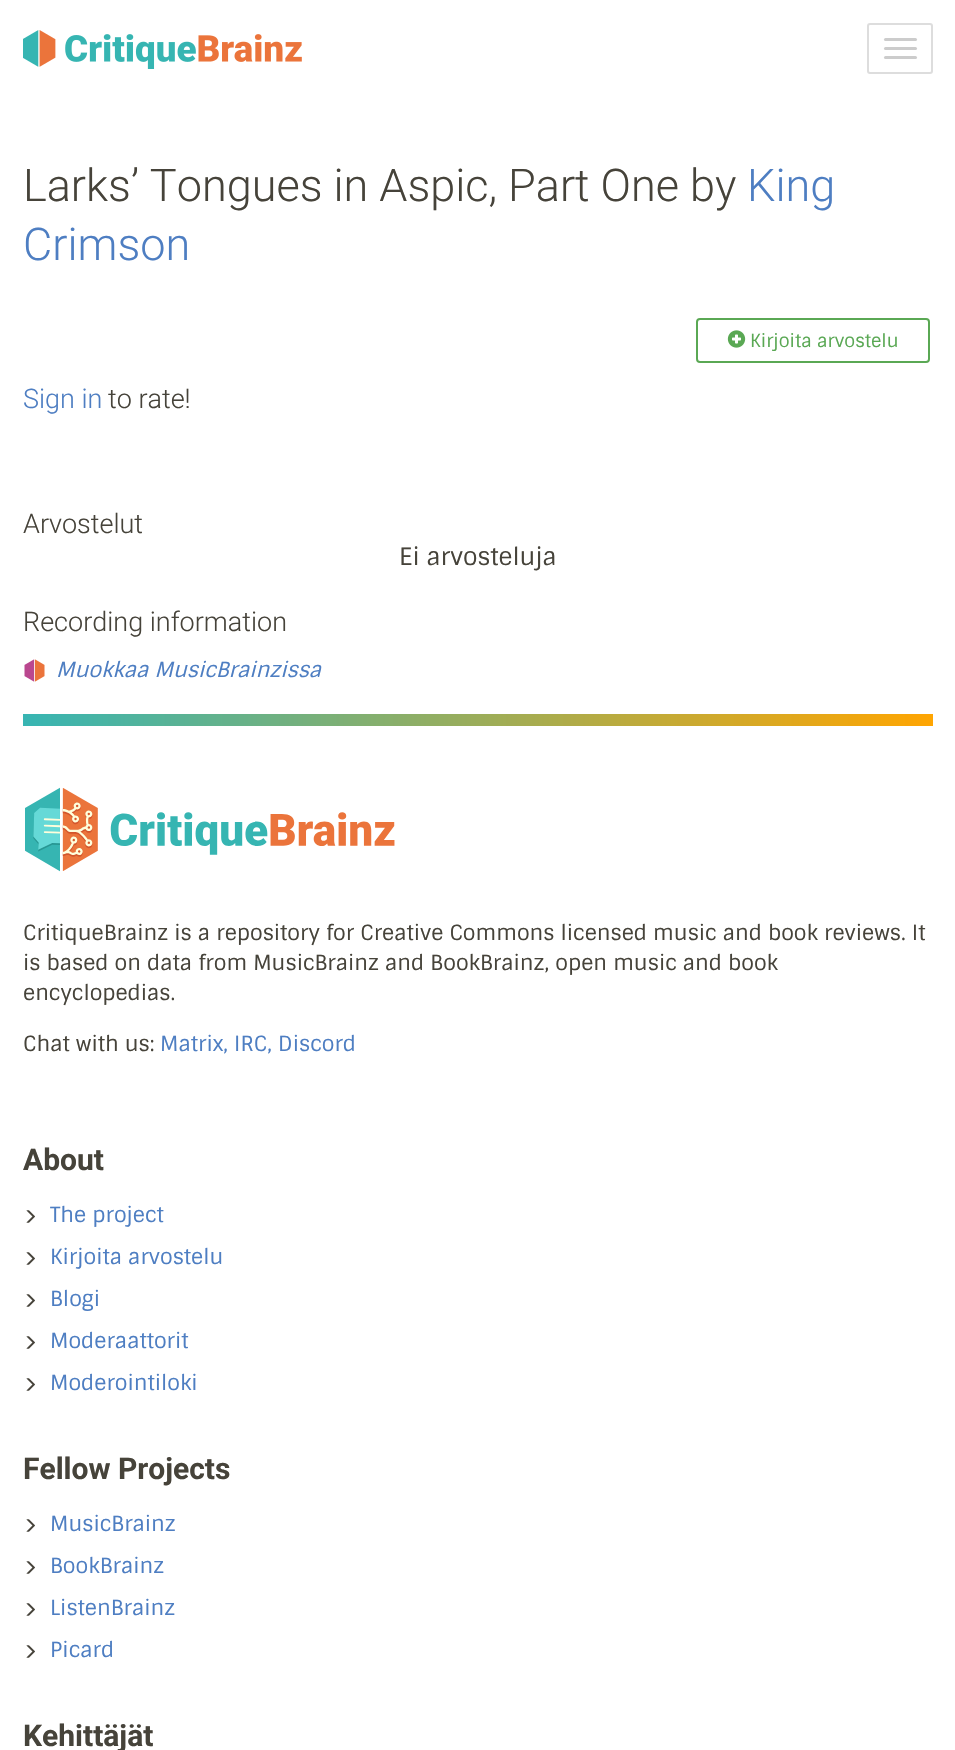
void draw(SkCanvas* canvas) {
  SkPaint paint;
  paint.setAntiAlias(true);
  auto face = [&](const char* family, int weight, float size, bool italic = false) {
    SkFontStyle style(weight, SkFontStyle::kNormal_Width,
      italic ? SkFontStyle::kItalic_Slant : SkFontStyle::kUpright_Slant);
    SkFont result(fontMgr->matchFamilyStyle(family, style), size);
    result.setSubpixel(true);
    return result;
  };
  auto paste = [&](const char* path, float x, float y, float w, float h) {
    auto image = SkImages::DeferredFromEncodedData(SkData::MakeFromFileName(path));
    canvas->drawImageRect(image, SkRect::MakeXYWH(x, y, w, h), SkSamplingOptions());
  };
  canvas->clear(0xffffffff);
  paste("img/1.png", 23, 30, 279, 39);
  paint.setStroke(true);
  paint.setStrokeWidth(2);
  paint.setColor(0xffdddddd);
  canvas->drawRoundRect(SkRect::MakeXYWH(868, 24, 64, 49), 2, 2, paint);
  paint.setStroke(false);
  paint.setColor(0xffcccccc);
  canvas->drawRoundRect(SkRect::MakeXYWH(884, 38, 33, 3), 1.5f, 1.5f, paint);
  canvas->drawRoundRect(SkRect::MakeXYWH(884, 47, 33, 3), 1.5f, 1.5f, paint);
  canvas->drawRoundRect(SkRect::MakeXYWH(884, 56, 33, 3), 1.5f, 1.5f, paint);
  paint.setStroke(true);
  paint.setColor(0xff5aa854);
  canvas->drawRoundRect(SkRect::MakeXYWH(697, 319, 232, 43), 3, 3, paint);
  paste("img/2.png", 727, 330, 19, 18);
  paste("img/3.png", 24, 659, 21, 23);
  paint.setStroke(false);
  {
    const SkColor colors[] = {0xff37b5b3, 0xffffa501};
    const float stops[] = {0, 1};
    const SkPoint ends[] = {{23, 720}, {933, 720}};
    paint.setShader(SkGradientShader::MakeLinear(ends, colors, stops, 2, SkTileMode::kClamp));
    paint.setAlpha(255);
  }
  canvas->drawRect(SkRect::MakeXYWH(23, 714, 910, 12), paint);
  paste("img/4.png", 25, 787, 370, 85);
  paste("img/5.png", 26, 1210, 9, 13);
  paste("img/5.png", 26, 1252, 9, 13);
  paste("img/5.png", 26, 1294, 9, 13);
  paste("img/5.png", 26, 1336, 9, 13);
  paste("img/5.png", 26, 1378, 9, 13);
  paste("img/5.png", 26, 1519, 9, 13);
  paste("img/5.png", 26, 1561, 9, 13);
  paste("img/5.png", 26, 1603, 9, 13);
  paste("img/5.png", 26, 1645, 9, 13);
  auto f0 = face("Roboto", 300, 45);
  paint.setShader(nullptr);
  paint.setColor(0xff46433a);
  canvas->drawString("Larks’ Tongues in Aspic, Part One by", 23, 201, f0, paint);
  paint.setColor(0xff4e7ec2);
  canvas->drawString("King", 747, 201, f0, paint);
  canvas->drawString("Crimson", 23, 260, f0, paint);
  auto f1 = face("Sintony", 400, 18);
  paint.setColor(0xff5aa854);
  canvas->drawString("Kirjoita arvostelu", 750, 347, f1, paint);
  auto f2 = face("Roboto", 300, 27);
  paint.setColor(0xff4e7ec2);
  canvas->drawString("Sign in", 23, 408, f2, paint);
  paint.setColor(0xff46433a);
  canvas->drawString("to rate!", 108, 408, f2, paint);
  canvas->drawString("Arvostelut", 23, 533, f2, paint);
  auto f3 = face("Sintony", 400, 24);
  canvas->drawString("Ei arvosteluja", 399, 565, f3, paint);
  canvas->drawString("Recording information", 23, 631, f2, paint);
  auto f4 = face("Sintony", 400, 21, true);
  paint.setColor(0xff4e7ec2);
  canvas->drawString("Muokkaa MusicBrainzissa", 56, 677, f4, paint);
  auto f5 = face("Sintony", 400, 21);
  paint.setColor(0xff46433a);
  {
    const struct { const char* s; float x, y; } items[] = {
      {"CritiqueBrainz is a repository for Creative Commons licensed music and book reviews. It", 23, 940},
      {"is based on data from MusicBrainz and BookBrainz, open music and book", 23, 970},
      {"encyclopedias.", 23, 1000},
      {"Chat with us:", 23, 1051},
    };
    for (auto [s, x, y] : items) {
      canvas->drawString(s, x, y, f5, paint);
    }
  }
  paint.setColor(0xff4e7ec2);
  canvas->drawString("Matrix, IRC, Discord", 160, 1051, f5, paint);
  auto f6 = face("Roboto", 700, 30);
  paint.setColor(0xff46433a);
  canvas->drawString("About", 23, 1170, f6, paint);
  paint.setColor(0xff4e7ec2);
  {
    const struct { const char* s; float x, y; } items[] = {
      {"The project", 50, 1222},
      {"Kirjoita arvostelu", 50, 1264},
      {"Blogi", 50, 1306},
      {"Moderaattorit", 50, 1348},
      {"Moderointiloki", 50, 1390},
    };
    for (auto [s, x, y] : items) {
      canvas->drawString(s, x, y, f5, paint);
    }
  }
  paint.setColor(0xff46433a);
  canvas->drawString("Fellow Projects", 23, 1479, f6, paint);
  paint.setColor(0xff4e7ec2);
  {
    const struct { const char* s; float x, y; } items[] = {
      {"MusicBrainz", 50, 1531},
      {"BookBrainz", 50, 1573},
      {"ListenBrainz", 50, 1615},
      {"Picard", 50, 1657},
    };
    for (auto [s, x, y] : items) {
      canvas->drawString(s, x, y, f5, paint);
    }
  }
  paint.setColor(0xff46433a);
  canvas->drawString("Kehittäjät", 23, 1746, f6, paint);
}
